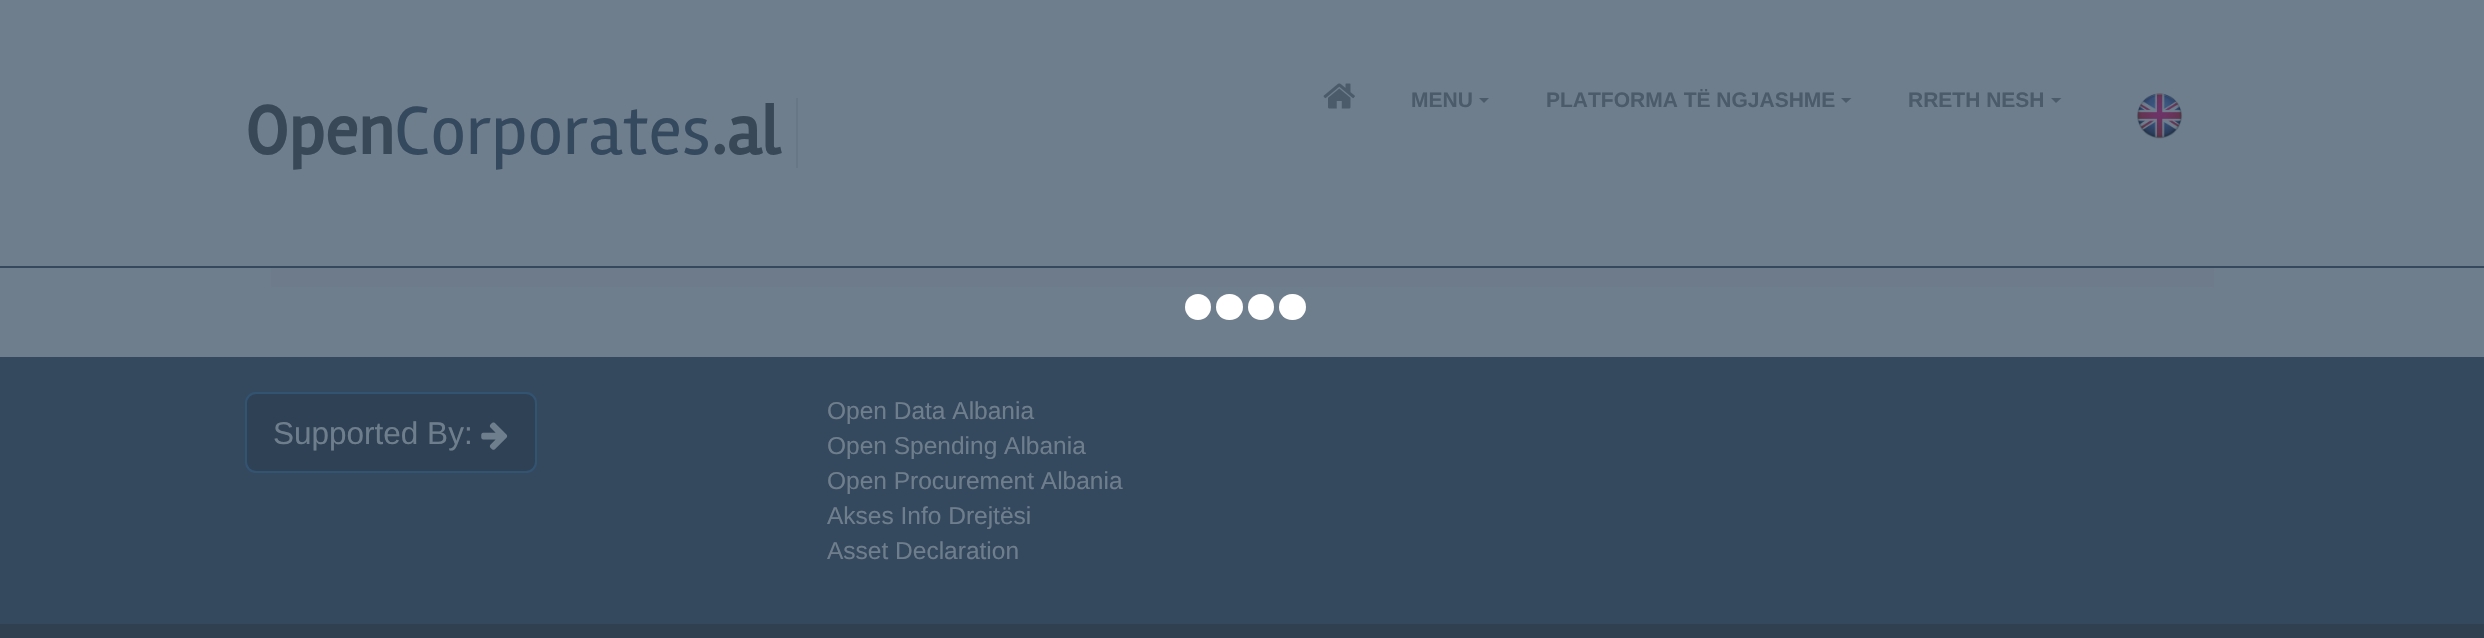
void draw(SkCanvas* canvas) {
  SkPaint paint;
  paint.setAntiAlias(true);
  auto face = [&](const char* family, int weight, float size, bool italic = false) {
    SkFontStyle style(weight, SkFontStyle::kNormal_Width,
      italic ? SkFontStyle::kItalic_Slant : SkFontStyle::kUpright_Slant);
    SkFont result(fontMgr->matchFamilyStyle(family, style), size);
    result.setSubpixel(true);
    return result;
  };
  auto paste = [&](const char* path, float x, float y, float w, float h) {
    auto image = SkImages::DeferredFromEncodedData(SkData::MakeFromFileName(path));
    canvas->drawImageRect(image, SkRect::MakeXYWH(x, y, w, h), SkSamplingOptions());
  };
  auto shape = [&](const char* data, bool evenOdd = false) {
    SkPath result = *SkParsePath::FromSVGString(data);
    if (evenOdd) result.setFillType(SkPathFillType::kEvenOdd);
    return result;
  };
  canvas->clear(0xff6f7e8d);
  paint.setColor(0xff34495e);
  canvas->drawRect(SkRect::MakeXYWH(0, 266, 2484, 2), paint);
  paste("img/1.png", 1323, 83, 32, 26);
  paint.setColor(0xff4c5b6a);
  canvas->drawPath(shape("M1479 98H1489L1484 103Z"), paint);
  canvas->drawPath(shape("M1841 98H1851.5L1846 103Z"), paint);
  canvas->drawPath(shape("M2051 98H2061.5L2056 103Z"), paint);
  paste("img/2.png", 2136, 93, 47, 46);
  paint.setColor(0xff687785);
  canvas->drawRect(SkRect::MakeXYWH(796, 98, 2, 70), paint);
  paint.setColor(0xff6d7b8a);
  canvas->drawRect(SkRect::MakeXYWH(271, 268, 1943, 19), paint);
  paint.setColor(0xffffffff);
  canvas->drawCircle(1198, 307, 13, paint);
  canvas->drawRoundRect(SkRect::MakeXYWH(1216, 294, 27, 26), 13, 13, paint);
  canvas->drawCircle(1261, 307, 13, paint);
  canvas->drawRoundRect(SkRect::MakeXYWH(1279, 294, 27, 26), 13, 13, paint);
  paint.setColor(0xff34495e);
  canvas->drawRect(SkRect::MakeXYWH(0, 357, 2484, 267), paint);
  paint.setColor(0xff2f4154);
  canvas->drawRoundRect(SkRect::MakeXYWH(246, 393, 290, 79), 10, 10, paint);
  paint.setStroke(true);
  paint.setStrokeWidth(2);
  paint.setColor(0xff325372);
  canvas->drawRoundRect(SkRect::MakeXYWH(246, 393, 290, 79), 10, 10, paint);
  paste("img/3.png", 481, 422, 27, 28);
  paint.setStroke(false);
  paint.setColor(0xff314050);
  canvas->drawRect(SkRect::MakeXYWH(0, 624, 2484, 14), paint);
  auto f0 = face("Liberation Sans", 700, 21);
  paint.setColor(0xff4c5b6a);
  {
    const struct { const char* s; float x, y; } items[] = {
      {"MENU", 1411, 107},
      {"PLATFORMA TË NGJASHME", 1546, 107},
      {"RRETH NESH", 1908, 107},
    };
    for (auto [s, x, y] : items) {
      canvas->drawString(s, x, y, f0, paint);
    }
  }
  auto f1 = face("Rambla", 700, 70);
  paint.setColor(0xff394857);
  canvas->drawString("Open", 245, 154, f1, paint);
  auto f2 = face("Rambla", 400, 70);
  paint.setColor(0xff34495e);
  canvas->drawString("Corporates", 394, 154, f2, paint);
  paint.setColor(0xff394857);
  canvas->drawString(".al", 711, 154, f1, paint);
  auto f3 = face("Liberation Sans", 400, 31.5f);
  paint.setColor(0xff6f7e8d);
  canvas->drawString("Supported By:", 273, 444, f3, paint);
  auto f4 = face("Liberation Sans", 400, 24.5f);
  {
    const struct { const char* s; float x, y; } items[] = {
      {"Open Data Albania", 827, 419},
      {"Open Spending Albania", 827, 454},
      {"Open Procurement Albania", 827, 489},
      {"Akses Info Drejtësi", 827, 524},
      {"Asset Declaration", 827, 559},
    };
    for (auto [s, x, y] : items) {
      canvas->drawString(s, x, y, f4, paint);
    }
  }
}
